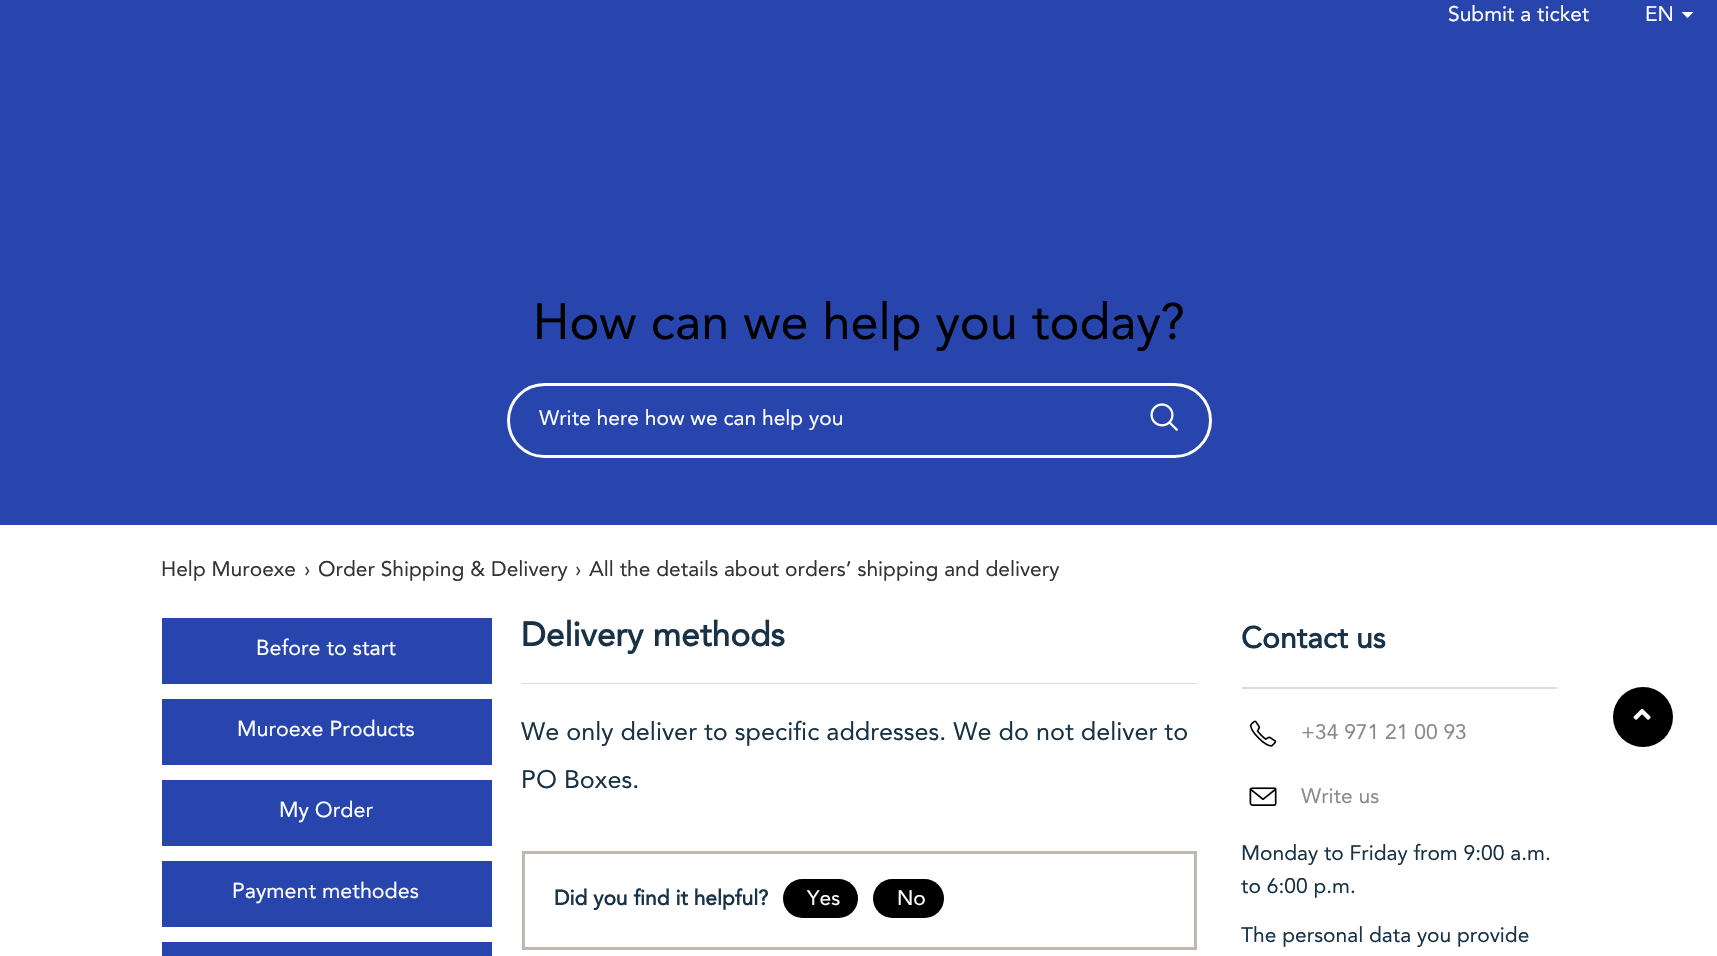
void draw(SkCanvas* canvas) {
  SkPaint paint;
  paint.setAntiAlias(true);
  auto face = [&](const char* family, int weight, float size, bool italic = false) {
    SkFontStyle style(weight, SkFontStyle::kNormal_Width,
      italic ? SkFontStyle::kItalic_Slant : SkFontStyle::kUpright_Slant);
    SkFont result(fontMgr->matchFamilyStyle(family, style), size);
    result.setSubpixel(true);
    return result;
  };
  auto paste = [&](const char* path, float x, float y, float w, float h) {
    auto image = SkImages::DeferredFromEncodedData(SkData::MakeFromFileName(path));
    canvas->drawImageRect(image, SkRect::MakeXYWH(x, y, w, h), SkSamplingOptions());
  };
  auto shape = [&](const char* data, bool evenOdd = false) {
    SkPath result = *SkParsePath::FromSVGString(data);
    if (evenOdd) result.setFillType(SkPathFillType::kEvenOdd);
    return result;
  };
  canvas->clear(0xffffffff);
  paint.setColor(0xff2745ac);
  canvas->drawRect(SkRect::MakeXYWH(0, 0, 1717, 525), paint);
  paint.setColor(0xffffffff);
  canvas->drawPath(shape("M1681.5 12H1693.5L1687.5 18Z"), paint);
  paint.setStroke(true);
  paint.setStrokeWidth(3);
  canvas->drawRoundRect(SkRect::MakeXYWH(508.5f, 384.5f, 702, 72), 36, 36, paint);
  paste("img/1.png", 1150, 403, 28, 28);
  paint.setStroke(false);
  {
    const struct { float x, y, w, h; SkColor color; } items[] = {
      {162, 618, 330, 66, 0xff2745ac},
      {162, 699, 330, 66, 0xff2745ac},
      {162, 780, 330, 66, 0xff2745ac},
      {162, 861, 330, 66, 0xff2745ac},
      {162, 942, 330, 14, 0xff2745ac},
      {522, 683, 675, 1, 0xffdcdcdc},
    };
    for (auto [x, y, w, h, color] : items) {
      paint.setColor(color);
      canvas->drawRect(SkRect::MakeXYWH(x, y, w, h), paint);
    }
  }
  paint.setStroke(true);
  paint.setColor(0xffbfb7b1);
  canvas->drawRect(SkRect::MakeXYWH(523.5f, 852.5f, 672, 96), paint);
  paint.setStroke(false);
  paint.setColor(0xff000000);
  canvas->drawRoundRect(SkRect::MakeXYWH(783, 879, 75, 39), 19.5f, 19.5f, paint);
  canvas->drawRoundRect(SkRect::MakeXYWH(873, 879, 71, 39), 19.5f, 19.5f, paint);
  paint.setColor(0xffdddddd);
  canvas->drawRect(SkRect::MakeXYWH(1242, 687, 315, 2), paint);
  paste("img/2.png", 1249, 720, 28, 27);
  paste("img/3.png", 1249, 787, 28, 19);
  paint.setColor(0xff000000);
  canvas->drawCircle(1643, 717, 30, paint);
  paste("img/4.png", 1633, 708, 18, 12);
  auto f0 = face("Avenir", 400, 21);
  paint.setColor(0xffffffff);
  canvas->drawString("Submit a ticket", 1448, 21, f0, paint);
  canvas->drawString("EN", 1645, 21, f0, paint);
  auto f1 = face("Avenir", 400, 50.4f);
  paint.setColor(0xff000000);
  canvas->drawString("How can we help you today?", 533, 339, f1, paint);
  paint.setColor(0xffffffff);
  canvas->drawString("Write here how we can help you", 539, 425, f0, paint);
  paint.setColor(0xff333333);
  canvas->drawString("Help Muroexe", 161, 576, f0, paint);
  paint.setColor(0xff403d3d);
  canvas->drawString("›", 304, 576, f0, paint);
  paint.setColor(0xff333333);
  canvas->drawString("Order Shipping & Delivery", 318, 576, f0, paint);
  paint.setColor(0xff403d3d);
  canvas->drawString("›", 575, 576, f0, paint);
  paint.setColor(0xff333333);
  canvas->drawString("All the details about orders’ shipping and delivery", 589, 576, f0, paint);
  auto f2 = face("Avenir", 400, 21.5f);
  paint.setColor(0xffffffff);
  {
    const struct { const char* s; float x, y; } items[] = {
      {"Before to start", 256, 655},
      {"Muroexe Products", 237, 736},
      {"My Order", 279, 817},
      {"Payment methodes", 232, 898},
    };
    for (auto [s, x, y] : items) {
      canvas->drawString(s, x, y, f2, paint);
    }
  }
  auto f3 = face("Avenir", 700, 33.5f);
  paint.setColor(0xff183247);
  canvas->drawString("Delivery methods", 521, 646, f3, paint);
  auto f4 = face("Avenir", 400, 25.2f);
  canvas->drawString("We only deliver to specific addresses. We do not deliver to", 521, 740, f4, paint);
  canvas->drawString("PO Boxes.", 521, 788, f4, paint);
  auto f5 = face("Avenir", 700, 21);
  canvas->drawString("Did you find it helpful?", 554, 905, f5, paint);
  paint.setColor(0xffffffff);
  canvas->drawString("Yes", 807, 905, f0, paint);
  canvas->drawString("No", 897, 905, f0, paint);
  auto f6 = face("Avenir", 700, 30);
  paint.setColor(0xff183247);
  canvas->drawString("Contact us", 1241, 648, f6, paint);
  paint.setColor(0xff8a8a8a);
  canvas->drawString("+34 971 21 00 93", 1301, 739, f0, paint);
  canvas->drawString("Write us", 1301, 803, f0, paint);
  paint.setColor(0xff183247);
  {
    const struct { const char* s; float x, y; } items[] = {
      {"Monday to Friday from 9:00 a.m.", 1241, 860},
      {"to 6:00 p.m.", 1241, 893},
      {"The personal data you provide", 1241, 942},
    };
    for (auto [s, x, y] : items) {
      canvas->drawString(s, x, y, f0, paint);
    }
  }
}
